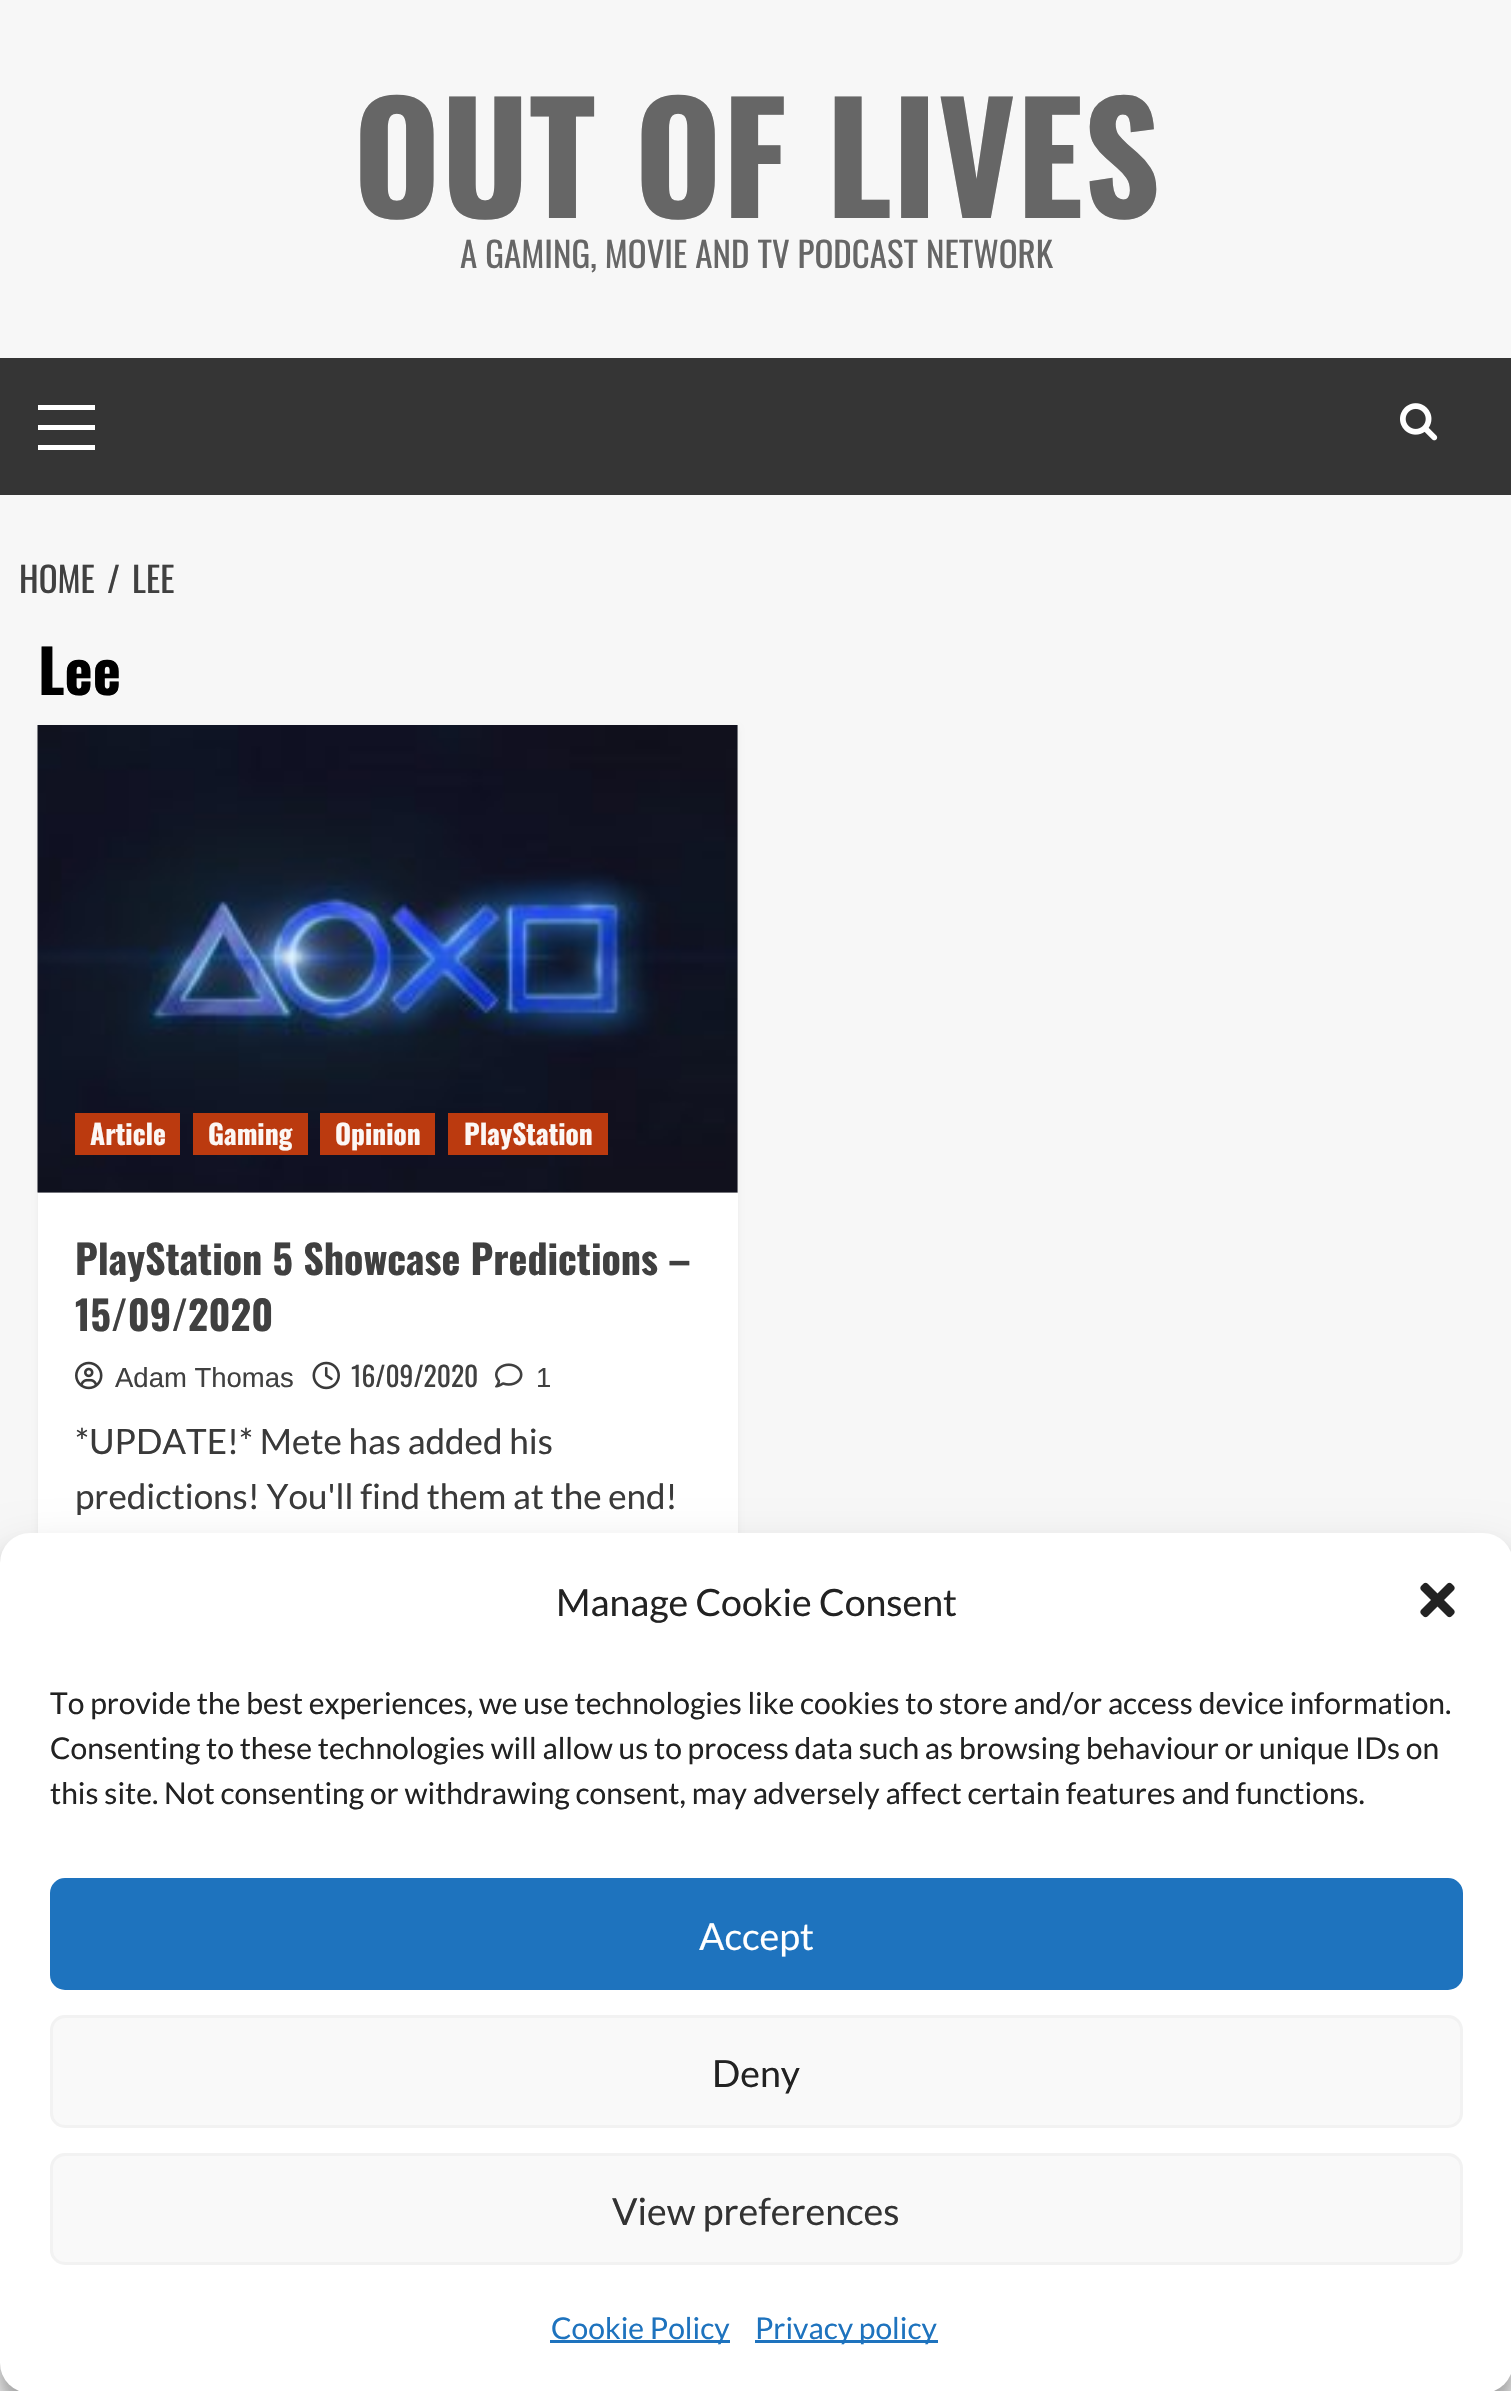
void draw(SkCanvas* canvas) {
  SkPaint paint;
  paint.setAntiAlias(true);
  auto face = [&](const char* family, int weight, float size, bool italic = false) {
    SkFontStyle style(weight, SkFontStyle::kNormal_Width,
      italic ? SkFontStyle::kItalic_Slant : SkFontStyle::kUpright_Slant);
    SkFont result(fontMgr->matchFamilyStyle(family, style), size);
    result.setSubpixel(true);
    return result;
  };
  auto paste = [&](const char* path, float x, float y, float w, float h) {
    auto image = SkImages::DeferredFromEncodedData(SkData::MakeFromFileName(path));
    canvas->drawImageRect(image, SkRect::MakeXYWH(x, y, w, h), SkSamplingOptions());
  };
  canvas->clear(0xfff7f7f7);
  {
    const struct { float x, y, w, h; SkColor color; } items[] = {
      {0, 358, 1511, 137, 0xff353535},
      {38, 425, 57, 5, 0xffffffff},
      {38, 405, 57, 5, 0xffffffff},
      {38, 445, 57, 5, 0xffffffff},
    };
    for (auto [x, y, w, h, color] : items) {
      paint.setColor(color);
      canvas->drawRect(SkRect::MakeXYWH(x, y, w, h), paint);
    }
  }
  paste("img/1.png", 1400, 403, 38, 38);
  paint.setColor(0x0d000000);
  paint.setMaskFilter(SkMaskFilter::MakeBlur(kNormal_SkBlurStyle, 2.5f));
  canvas->drawRect(SkRect::MakeXYWH(38, 728, 700, 975), paint);
  paint.setMaskFilter(nullptr);
  paint.setColor(0xffffffff);
  canvas->drawRect(SkRect::MakeXYWH(38, 1193, 700, 340), paint);
  paint.setColor(0xffd8d8d8);
  canvas->drawRect(SkRect::MakeXYWH(38, 725, 700, 468), paint);
  paste("img/2.png", 37, 725, 701, 468);
  {
    const struct { float x, y, w, h; SkColor color; } items[] = {
      {75, 1113, 105, 42, 0xf5c23b0e},
      {193, 1113, 115, 42, 0xf5c23b0e},
      {320, 1113, 115, 42, 0xf5c23b0e},
      {448, 1113, 160, 42, 0xf5c23b0e},
    };
    for (auto [x, y, w, h, color] : items) {
      paint.setColor(color);
      canvas->drawRect(SkRect::MakeXYWH(x, y, w, h), paint);
    }
  }
  paste("img/3.png", 75, 1361, 28, 29);
  paste("img/4.png", 312, 1361, 28, 29);
  paste("img/5.png", 495, 1363, 28, 25);
  paint.setColor(0x3b000000);
  paint.setMaskFilter(SkMaskFilter::MakeBlur(kNormal_SkBlurStyle, 7.5f));
  canvas->drawRoundRect(SkRect::MakeXYWH(0, 1548, 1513, 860), 30, 30, paint);
  paint.setMaskFilter(nullptr);
  paint.setColor(0x30000000);
  paint.setMaskFilter(SkMaskFilter::MakeBlur(kNormal_SkBlurStyle, 25));
  canvas->drawRoundRect(SkRect::MakeXYWH(0, 1558, 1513, 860), 30, 30, paint);
  paint.setMaskFilter(nullptr);
  paint.setColor(0xffffffff);
  canvas->drawRoundRect(SkRect::MakeXYWH(0, 1533, 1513, 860), 30, 30, paint);
  paste("img/6.png", 1420, 1582, 35, 36);
  paint.setColor(0xff1e73be);
  canvas->drawRoundRect(SkRect::MakeXYWH(51.5f, 1879.5f, 1410, 109), 13.5f, 13.5f, paint);
  paint.setStroke(true);
  paint.setStrokeWidth(3);
  canvas->drawRoundRect(SkRect::MakeXYWH(51.5f, 1879.5f, 1410, 109), 13.5f, 13.5f, paint);
  paint.setStroke(false);
  paint.setColor(0xfff9f9f9);
  canvas->drawRoundRect(SkRect::MakeXYWH(51.5f, 2016.5f, 1410, 110), 13.5f, 13.5f, paint);
  paint.setStroke(true);
  paint.setColor(0xfff2f2f2);
  canvas->drawRoundRect(SkRect::MakeXYWH(51.5f, 2016.5f, 1410, 110), 13.5f, 13.5f, paint);
  paint.setStroke(false);
  paint.setColor(0xfff9f9f9);
  canvas->drawRoundRect(SkRect::MakeXYWH(51.5f, 2154.5f, 1410, 109), 13.5f, 13.5f, paint);
  paint.setStroke(true);
  paint.setColor(0xfff2f2f2);
  canvas->drawRoundRect(SkRect::MakeXYWH(51.5f, 2154.5f, 1410, 109), 13.5f, 13.5f, paint);
  paint.setStroke(false);
  paint.setColor(0xff1e73be);
  canvas->drawRect(SkRect::MakeXYWH(550, 2340, 180, 3), paint);
  canvas->drawRect(SkRect::MakeXYWH(755, 2340, 183, 3), paint);
  auto f0 = face("Oswald", 700, 150);
  paint.setColor(0xff666666);
  canvas->drawString("OUT OF LIVES", 353, 218, f0, paint);
  auto f1 = face("Oswald", 400, 35);
  canvas->drawString("A GAMING, MOVIE AND TV PODCAST NETWORK", 460, 268, f1, paint);
  paint.setColor(0xff404040);
  {
    const struct { const char* s; float x, y; } items[] = {
      {"HOME", 19, 593},
      {"/", 107, 593},
      {"LEE", 132, 593},
    };
    for (auto [s, x, y] : items) {
      canvas->drawString(s, x, y, f1, paint);
    }
  }
  auto f2 = face("Oswald", 700, 60);
  paint.setColor(0xff000000);
  canvas->drawString("Lee", 38, 695, f2, paint);
  auto f3 = face("Oswald", 700, 27.5f);
  paint.setColor(0xfffcf7f5);
  {
    const struct { const char* s; float x, y; } items[] = {
      {"Article", 90, 1145},
      {"Gaming", 208, 1145},
      {"Opinion", 335, 1145},
      {"PlayStation", 464, 1145},
    };
    for (auto [s, x, y] : items) {
      canvas->drawString(s, x, y, f3, paint);
    }
  }
  auto f4 = face("Oswald", 700, 40);
  paint.setColor(0xff404040);
  canvas->drawString("PlayStation 5 Showcase Predictions –", 75, 1275, f4, paint);
  canvas->drawString("15/09/2020", 75, 1331, f4, paint);
  auto f5 = face("Liberation Sans", 400, 27.5f);
  canvas->drawString("Adam Thomas", 115, 1387, f5, paint);
  auto f6 = face("Oswald", 400, 27.5f);
  canvas->drawString("16/09/2020", 351, 1387, f6, paint);
  canvas->drawString("1", 536, 1387, f5, paint);
  auto f7 = face("Lato", 400, 35);
  paint.setColor(0xff3a3a3a);
  canvas->drawString("*UPDATE!* Mete has added his", 75, 1454, f7, paint);
  canvas->drawString("predictions! You'll find them at the end!", 75, 1509, f7, paint);
  auto f8 = face("Lato", 400, 37.5f);
  paint.setColor(0xff222222);
  canvas->drawString("Manage Cookie Consent", 556, 1616, f8, paint);
  auto f9 = face("Lato", 400, 30);
  {
    const struct { const char* s; float x, y; } items[] = {
      {"To provide the best experiences, we use technologies like cookies to store and/or access device information.", 50, 1714},
      {"Consenting to these technologies will allow us to process data such as browsing behaviour or unique IDs on", 50, 1759},
      {"this site. Not consenting or withdrawing consent, may adversely affect certain features and functions.", 50, 1804},
    };
    for (auto [s, x, y] : items) {
      canvas->drawString(s, x, y, f9, paint);
    }
  }
  paint.setColor(0xffffffff);
  canvas->drawString("Accept", 699, 1950, f8, paint);
  paint.setColor(0xff222222);
  canvas->drawString("Deny", 712, 2087, f8, paint);
  paint.setColor(0xff333333);
  canvas->drawString("View preferences", 612, 2225, f8, paint);
  paint.setColor(0xff1e73be);
  canvas->drawString("Cookie Policy", 551, 2339, f9, paint);
  canvas->drawString("Privacy policy", 755, 2339, f9, paint);
}
